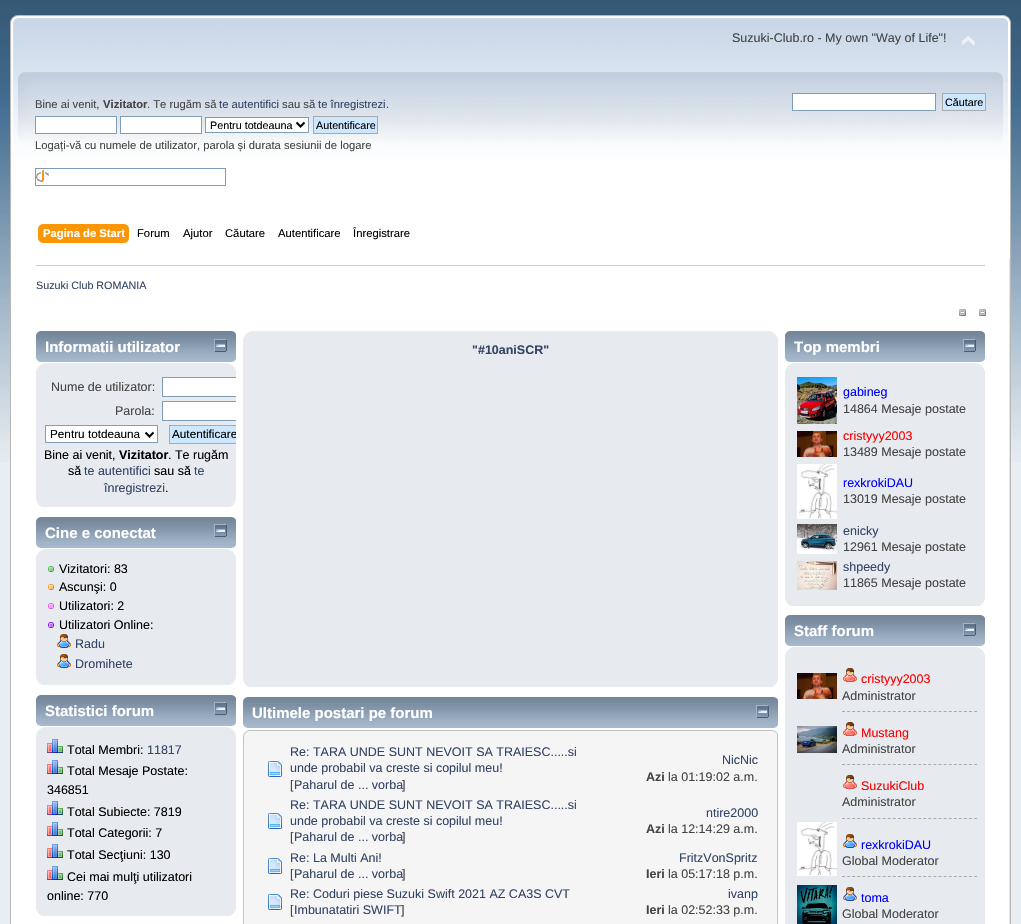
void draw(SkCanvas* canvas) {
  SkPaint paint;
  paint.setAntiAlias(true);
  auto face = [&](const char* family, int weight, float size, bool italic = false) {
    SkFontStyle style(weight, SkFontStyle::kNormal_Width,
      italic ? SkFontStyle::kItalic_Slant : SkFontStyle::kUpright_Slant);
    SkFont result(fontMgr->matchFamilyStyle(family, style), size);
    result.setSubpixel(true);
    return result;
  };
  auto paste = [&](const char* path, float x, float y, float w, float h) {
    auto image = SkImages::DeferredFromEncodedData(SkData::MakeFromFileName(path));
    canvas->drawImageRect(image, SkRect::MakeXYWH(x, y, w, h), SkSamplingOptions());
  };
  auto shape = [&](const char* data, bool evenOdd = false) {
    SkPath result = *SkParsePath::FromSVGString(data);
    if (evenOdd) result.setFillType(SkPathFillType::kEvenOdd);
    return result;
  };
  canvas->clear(0xffe9eef2);
  paste("img/1.png", 0, 0, 1021, 462);
  paste("img/2.png", 10, 15, 987, 244);
  paste("img/3.png", 997, 15, 14, 244);
  paste("img/4.png", 961, 35, 15, 12);
  paint.setColor(0xffffffff);
  canvas->drawRect(SkRect::MakeXYWH(35.5f, 116.5f, 81, 17), paint);
  paint.setStroke(true);
  paint.setStrokeWidth(1);
  paint.setColor(0xff7f9db9);
  canvas->drawRect(SkRect::MakeXYWH(35.5f, 116.5f, 81, 17), paint);
  paint.setStroke(false);
  paint.setColor(0xffffffff);
  canvas->drawRect(SkRect::MakeXYWH(120.5f, 116.5f, 81, 17), paint);
  paint.setStroke(true);
  paint.setColor(0xff7f9db9);
  canvas->drawRect(SkRect::MakeXYWH(120.5f, 116.5f, 81, 17), paint);
  paint.setStroke(false);
  paint.setColor(0xffffffff);
  canvas->drawRect(SkRect::MakeXYWH(205.5f, 117.5f, 103, 15), paint);
  paint.setStroke(true);
  paint.setColor(0xff7f9db9);
  canvas->drawRect(SkRect::MakeXYWH(205.5f, 117.5f, 103, 15), paint);
  paint.setStrokeWidth(2);
  paint.setColor(0xff000000);
  canvas->drawPath(shape("M296.5 122.5L300.5 126.5L304.5 122.5"), paint);
  paint.setStroke(false);
  paint.setColor(0xffcde7ff);
  canvas->drawRect(SkRect::MakeXYWH(313.5f, 116.5f, 64, 17), paint);
  paint.setStroke(true);
  paint.setStrokeWidth(1);
  paint.setColor(0xffaaaaaa);
  canvas->drawRect(SkRect::MakeXYWH(313.5f, 116.5f, 64, 17), paint);
  paste("img/5.png", 36, 169, 13, 13);
  paint.setColor(0xff7f9db9);
  canvas->drawRect(SkRect::MakeXYWH(35.5f, 168.5f, 190, 17), paint);
  paint.setStroke(false);
  paint.setColor(0xffffffff);
  canvas->drawRect(SkRect::MakeXYWH(792.5f, 93.5f, 143, 17), paint);
  paint.setStroke(true);
  paint.setColor(0xff7f9db9);
  canvas->drawRect(SkRect::MakeXYWH(792.5f, 93.5f, 143, 17), paint);
  paint.setStroke(false);
  paint.setColor(0xffcde7ff);
  canvas->drawRect(SkRect::MakeXYWH(942.5f, 93.5f, 43, 17), paint);
  paint.setStroke(true);
  paint.setColor(0xffaaaaaa);
  canvas->drawRect(SkRect::MakeXYWH(942.5f, 93.5f, 43, 17), paint);
  paste("img/6.png", 43, 224, 86, 19);
  paste("img/7.png", 38, 224, 5, 19);
  paint.setStroke(false);
  paint.setColor(0xffffffff);
  canvas->drawRect(SkRect::MakeXYWH(11, 259, 998, 665), paint);
  paint.setColor(0xffb7b7b7);
  canvas->drawRect(SkRect::MakeXYWH(10, 259, 1, 665), paint);
  paste("img/8.png", 1009, 259, 2, 665);
  paint.setColor(0xffcccccc);
  canvas->drawRect(SkRect::MakeXYWH(36, 265, 949, 1), paint);
  paste("img/9.png", 959, 309, 7, 7);
  paste("img/9.png", 979, 309, 7, 7);
  paste("img/10.png", 36, 331, 195, 31);
  paste("img/11.png", 231, 331, 5, 31);
  paste("img/12.png", 214, 339, 13, 13);
  paint.setColor(0xffe7eaef);
  canvas->drawRect(SkRect::MakeXYWH(36, 363, 200, 144), paint);
  paste("img/13.png", 36, 363, 9, 9);
  paste("img/14.png", 227, 363, 9, 8);
  paint.setColor(0xffffffff);
  canvas->drawRect(SkRect::MakeXYWH(163, 378, 73, 18), paint);
  paint.setColor(0xffe7eaef);
  canvas->drawRect(SkRect::MakeXYWH(243, 331, 535, 356), paint);
  canvas->save();
  canvas->clipRect(SkRect::MakeXYWH(36, 374, 200, 122));
  paint.setStroke(true);
  paint.setColor(0xff7f9db9);
  canvas->drawRect(SkRect::MakeXYWH(162.5f, 377.5f, 83, 19), paint);
  canvas->restore();
  paint.setStroke(false);
  paint.setColor(0xffffffff);
  canvas->drawRect(SkRect::MakeXYWH(163, 402, 73, 18), paint);
  canvas->save();
  canvas->clipRect(SkRect::MakeXYWH(36, 374, 200, 122));
  paint.setStroke(true);
  paint.setColor(0xff7f9db9);
  canvas->drawRect(SkRect::MakeXYWH(162.5f, 401.5f, 83, 19), paint);
  canvas->restore();
  paint.setStroke(false);
  paint.setColor(0xffffffff);
  canvas->drawRect(SkRect::MakeXYWH(45.5f, 425.5f, 112, 17), paint);
  paint.setStroke(true);
  paint.setColor(0xff7f9db9);
  canvas->drawRect(SkRect::MakeXYWH(45.5f, 425.5f, 112, 17), paint);
  paint.setStrokeWidth(2);
  paint.setColor(0xff000000);
  canvas->drawPath(shape("M145.5 432.5L149.5 436.5L153.5 432.5"), paint);
  paint.setStroke(false);
  paint.setColor(0xffcde7ff);
  canvas->drawRect(SkRect::MakeXYWH(170, 426, 66, 17), paint);
  canvas->save();
  canvas->clipRect(SkRect::MakeXYWH(36, 374, 200, 122));
  paint.setStroke(true);
  paint.setStrokeWidth(1);
  paint.setColor(0xffaaaaaa);
  canvas->drawRect(SkRect::MakeXYWH(169.5f, 425.5f, 70, 18), paint);
  canvas->restore();
  paste("img/15.png", 36, 499, 6, 8);
  paste("img/16.png", 230, 499, 6, 8);
  paste("img/10.png", 36, 517, 195, 31);
  paste("img/11.png", 231, 517, 5, 31);
  paste("img/17.png", 214, 524, 13, 13);
  paint.setStroke(false);
  paint.setColor(0xffe7eaef);
  canvas->drawRect(SkRect::MakeXYWH(36, 549, 200, 136), paint);
  paste("img/13.png", 36, 549, 9, 9);
  paste("img/14.png", 227, 549, 9, 8);
  paste("img/18.png", 48, 566, 6, 6);
  paste("img/19.png", 48, 584, 6, 6);
  paste("img/20.png", 48, 603, 6, 6);
  paste("img/21.png", 48, 622, 6, 6);
  paste("img/22.png", 57, 634, 14, 14);
  paste("img/22.png", 57, 654, 14, 14);
  paste("img/15.png", 36, 677, 6, 8);
  paste("img/16.png", 230, 677, 6, 8);
  paste("img/10.png", 36, 695, 195, 31);
  paste("img/11.png", 231, 695, 5, 31);
  paste("img/17.png", 214, 702, 13, 13);
  canvas->drawRect(SkRect::MakeXYWH(36, 727, 200, 189), paint);
  paste("img/13.png", 36, 727, 9, 9);
  paste("img/14.png", 227, 727, 9, 8);
  paste("img/23.png", 47, 739, 16, 14);
  paste("img/23.png", 47, 760, 16, 14);
  paste("img/23.png", 47, 801, 16, 14);
  paste("img/23.png", 47, 822, 16, 14);
  paste("img/23.png", 47, 844, 16, 14);
  paste("img/23.png", 47, 866, 16, 14);
  paste("img/15.png", 36, 908, 6, 8);
  paste("img/16.png", 230, 908, 6, 8);
  paste("img/24.png", 243, 331, 9, 9);
  paste("img/14.png", 769, 331, 9, 8);
  paste("img/25.png", 243, 679, 6, 8);
  paste("img/16.png", 772, 679, 6, 8);
  paste("img/26.png", 243, 697, 530, 31);
  paste("img/11.png", 773, 697, 5, 31);
  paste("img/12.png", 756, 705, 13, 13);
  paste("img/27.png", 243, 730, 529, 11);
  paste("img/28.png", 772, 730, 6, 11);
  {
    const struct { float x, y, w, h; SkColor color; } items[] = {
      {244, 741, 533, 183, 0xfff5f5f5},
      {777, 741, 1, 183, 0xffc5c5c5},
      {243, 741, 1, 183, 0xffc5c5c5},
    };
    for (auto [x, y, w, h, color] : items) {
      paint.setColor(color);
      canvas->drawRect(SkRect::MakeXYWH(x, y, w, h), paint);
    }
  }
  paste("img/29.png", 268, 761, 14, 16);
  paste("img/29.png", 268, 813, 14, 16);
  paste("img/29.png", 268, 858, 14, 16);
  paste("img/29.png", 268, 894, 14, 16);
  paste("img/10.png", 785, 331, 195, 31);
  paste("img/11.png", 980, 331, 5, 31);
  paste("img/12.png", 963, 339, 13, 13);
  paint.setColor(0xffe7eaef);
  canvas->drawRect(SkRect::MakeXYWH(785, 363, 200, 243), paint);
  paste("img/13.png", 785, 363, 9, 9);
  paste("img/14.png", 976, 363, 9, 8);
  paste("img/30.png", 797, 377, 40, 47);
  paste("img/31.png", 797, 431, 40, 26);
  paste("img/32.png", 797, 464, 40, 55);
  paste("img/33.png", 797, 524, 40, 30);
  paste("img/34.png", 797, 561, 40, 29);
  paste("img/15.png", 785, 598, 6, 8);
  paste("img/16.png", 979, 598, 6, 8);
  paste("img/10.png", 785, 615, 195, 31);
  paste("img/11.png", 980, 615, 5, 31);
  paste("img/12.png", 963, 623, 13, 13);
  canvas->drawRect(SkRect::MakeXYWH(785, 647, 200, 277), paint);
  paste("img/13.png", 785, 647, 9, 9);
  paste("img/14.png", 976, 647, 9, 8);
  paste("img/31.png", 797, 673, 40, 26);
  paint.setStroke(true);
  paint.setColor(0xffaaaaaa);
  paint.setPathEffect(SkDashPathEffect::Make({{3, 2.08f}}, 0));
  canvas->drawPath(shape("M842 711.5H977"), paint);
  paint.setPathEffect(nullptr);
  paste("img/35.png", 843, 668, 14, 14);
  paste("img/36.png", 797, 726, 40, 27);
  paint.setPathEffect(SkDashPathEffect::Make({{3, 2.08f}}, 0));
  canvas->drawPath(shape("M842 764.5H977"), paint);
  paint.setPathEffect(nullptr);
  paste("img/35.png", 843, 722, 14, 14);
  paint.setPathEffect(SkDashPathEffect::Make({{3, 2.08f}}, 0));
  canvas->drawPath(shape("M842 818.5H977"), paint);
  paint.setPathEffect(nullptr);
  paste("img/35.png", 843, 775, 14, 14);
  paste("img/37.png", 797, 822, 40, 54);
  paint.setPathEffect(SkDashPathEffect::Make({{3, 2.08f}}, 0));
  canvas->drawPath(shape("M842 876.5H977"), paint);
  paint.setPathEffect(nullptr);
  paste("img/38.png", 843, 834, 14, 14);
  paste("img/39.png", 797, 885, 40, 39);
  paste("img/38.png", 843, 887, 14, 14);
  auto f0 = face("Liberation Sans", 400, 12.5f);
  paint.setStroke(false);
  paint.setColor(0xff444444);
  canvas->drawString("Suzuki-Club.ro - My own \"Way of Life\"!", 732, 42, f0, paint);
  auto f1 = face("Liberation Sans", 400, 11.25f);
  canvas->drawString("Bine ai venit,", 35, 108, f1, paint);
  auto f2 = face("Liberation Sans", 700, 11.25f);
  canvas->drawString("Vizitator", 103, 108, f2, paint);
  canvas->drawString(". Te rugăm să", 147, 108, f1, paint);
  paint.setColor(0xff334466);
  canvas->drawString("te autentifici", 219, 108, f1, paint);
  paint.setColor(0xff444444);
  canvas->drawString("sau să", 282, 108, f1, paint);
  paint.setColor(0xff334466);
  canvas->drawString("te înregistrezi", 318, 108, f1, paint);
  paint.setColor(0xff444444);
  canvas->drawString(".", 386, 108, f1, paint);
  auto f3 = face("Liberation Sans", 400, 10.75f);
  paint.setColor(0xff000000);
  canvas->drawString("Pentru totdeauna", 210, 129, f3, paint);
  canvas->drawString("Autentificare", 316, 129, f3, paint);
  paint.setColor(0xff444444);
  canvas->drawString("Logați-vă cu numele de utilizator, parola și durata sesiunii de logare", 35, 149, f1, paint);
  paint.setColor(0xff000000);
  canvas->drawString("Căutare", 945, 106, f3, paint);
  paint.setColor(0xffffffff);
  canvas->drawString("Pagina de Start", 43, 237, f2, paint);
  paint.setColor(0xff000000);
  {
    const struct { const char* s; float x, y; } items[] = {
      {"Forum", 137, 237},
      {"Ajutor", 183, 237},
      {"Căutare", 225, 237},
      {"Autentificare", 278, 237},
      {"Înregistrare", 353, 237},
    };
    for (auto [s, x, y] : items) {
      canvas->drawString(s, x, y, f1, paint);
    }
  }
  paint.setColor(0xff334466);
  canvas->drawString("Suzuki Club ROMANIA", 36, 289, f3, paint);
  auto f4 = face("Liberation Sans", 700, 15);
  paint.setColor(0xffffffff);
  canvas->drawString("Informatii utilizator", 45, 352, f4, paint);
  paint.setColor(0xff444444);
  canvas->drawString("Nume de utilizator:", 51, 391, f0, paint);
  canvas->drawString("Parola:", 115, 415, f0, paint);
  auto f5 = face("Liberation Sans", 400, 11.75f);
  paint.setColor(0xff000000);
  canvas->drawString("Pentru totdeauna", 50, 438, f5, paint);
  canvas->save();
  canvas->clipRect(SkRect::MakeXYWH(170, 426, 66, 17));
  canvas->drawString("Autentificare", 172, 438, f5, paint);
  canvas->restore();
  canvas->drawString("Bine ai venit,", 44, 459, f0, paint);
  auto f6 = face("Liberation Sans", 700, 12.5f);
  canvas->drawString("Vizitator", 119, 459, f6, paint);
  canvas->drawString(". Te rugăm", 168, 459, f0, paint);
  canvas->drawString("să", 68, 475, f0, paint);
  paint.setColor(0xff334466);
  canvas->drawString("te autentifici", 84, 475, f0, paint);
  paint.setColor(0xff000000);
  canvas->drawString("sau să", 154, 475, f0, paint);
  paint.setColor(0xff334466);
  canvas->drawString("te", 194, 475, f0, paint);
  canvas->drawString("înregistrezi", 104, 492, f0, paint);
  paint.setColor(0xff000000);
  canvas->drawString(".", 165, 492, f0, paint);
  paint.setColor(0xffffffff);
  canvas->drawString("Cine e conectat", 45, 538, f4, paint);
  paint.setColor(0xff000000);
  {
    const struct { const char* s; float x, y; } items[] = {
      {"Vizitatori: 83", 59, 573},
      {"Ascunşi: 0", 59, 591},
      {"Utilizatori: 2", 59, 610},
      {"Utilizatori Online:", 59, 629},
    };
    for (auto [s, x, y] : items) {
      canvas->drawString(s, x, y, f0, paint);
    }
  }
  paint.setColor(0xff334466);
  canvas->drawString("Radu", 75, 648, f0, paint);
  canvas->drawString("Dromihete", 75, 668, f0, paint);
  paint.setColor(0xffffffff);
  canvas->drawString("Statistici forum", 45, 716, f4, paint);
  paint.setColor(0xff000000);
  canvas->drawString("Total Membri:", 67, 754, f0, paint);
  paint.setColor(0xff334466);
  canvas->drawString("11817", 147, 754, f0, paint);
  paint.setColor(0xff000000);
  {
    const struct { const char* s; float x, y; } items[] = {
      {"Total Mesaje Postate:", 67, 775},
      {"346851", 47, 794},
      {"Total Subiecte: 7819", 67, 816},
      {"Total Categorii: 7", 67, 837},
      {"Total Secţiuni: 130", 67, 859},
      {"Cei mai mulţi utilizatori", 67, 881},
      {"online: 770", 47, 900},
    };
    for (auto [s, x, y] : items) {
      canvas->drawString(s, x, y, f0, paint);
    }
  }
  paint.setColor(0xff334466);
  canvas->drawString("\"#10aniSCR\"", 472, 354, f6, paint);
  paint.setColor(0xffffffff);
  canvas->drawString("Ultimele postari pe forum", 252, 718, f4, paint);
  paint.setColor(0xff334466);
  canvas->drawString("Re: TARA UNDE SUNT NEVOIT SA TRAIESC.....si", 290, 756, f0, paint);
  canvas->drawString("unde probabil va creste si copilul meu!", 290, 772, f0, paint);
  paint.setColor(0xff444444);
  canvas->drawString("[", 290, 789, f0, paint);
  paint.setColor(0xff334466);
  canvas->drawString("Paharul de ... vorba", 294, 789, f0, paint);
  paint.setColor(0xff444444);
  canvas->drawString("]", 402, 789, f0, paint);
  paint.setColor(0xff334466);
  canvas->drawString("NicNic", 722, 764, f0, paint);
  paint.setColor(0xff444444);
  canvas->drawString("Azi", 646, 781, f6, paint);
  canvas->drawString("la 01:19:02 a.m.", 668, 781, f0, paint);
  paint.setColor(0xff334466);
  canvas->drawString("Re: TARA UNDE SUNT NEVOIT SA TRAIESC.....si", 290, 809, f0, paint);
  canvas->drawString("unde probabil va creste si copilul meu!", 290, 825, f0, paint);
  paint.setColor(0xff444444);
  canvas->drawString("[", 290, 841, f0, paint);
  paint.setColor(0xff334466);
  canvas->drawString("Paharul de ... vorba", 294, 841, f0, paint);
  paint.setColor(0xff444444);
  canvas->drawString("]", 402, 841, f0, paint);
  paint.setColor(0xff334466);
  canvas->drawString("ntire2000", 706, 817, f0, paint);
  paint.setColor(0xff444444);
  canvas->drawString("Azi", 646, 833, f6, paint);
  canvas->drawString("la 12:14:29 a.m.", 668, 833, f0, paint);
  paint.setColor(0xff334466);
  canvas->drawString("Re: La Multi Ani!", 290, 862, f0, paint);
  paint.setColor(0xff444444);
  canvas->drawString("[", 290, 878, f0, paint);
  paint.setColor(0xff334466);
  canvas->drawString("Paharul de ... vorba", 294, 878, f0, paint);
  paint.setColor(0xff444444);
  canvas->drawString("]", 402, 878, f0, paint);
  paint.setColor(0xff334466);
  canvas->drawString("FritzVonSpritz", 679, 862, f0, paint);
  paint.setColor(0xff444444);
  canvas->drawString("Ieri", 646, 878, f6, paint);
  canvas->drawString("la 05:17:18 p.m.", 668, 878, f0, paint);
  paint.setColor(0xff334466);
  canvas->drawString("Re: Coduri piese Suzuki Swift 2021 AZ CA3S CVT", 290, 898, f0, paint);
  paint.setColor(0xff444444);
  canvas->drawString("[", 290, 914, f0, paint);
  paint.setColor(0xff334466);
  canvas->drawString("Imbunatatiri SWIFT", 294, 914, f0, paint);
  paint.setColor(0xff444444);
  canvas->drawString("]", 401, 914, f0, paint);
  paint.setColor(0xff334466);
  canvas->drawString("ivanp", 728, 898, f0, paint);
  paint.setColor(0xff444444);
  canvas->drawString("Ieri", 646, 914, f6, paint);
  canvas->drawString("la 02:52:33 p.m.", 668, 914, f0, paint);
  paint.setColor(0xffffffff);
  canvas->drawString("Top membri", 794, 352, f4, paint);
  paint.setColor(0xff0000ff);
  canvas->drawString("gabineg", 843, 396, f0, paint);
  paint.setColor(0xff444444);
  canvas->drawString("14864 Mesaje postate", 843, 413, f0, paint);
  paint.setColor(0xffff0000);
  canvas->drawString("cristyyy2003", 843, 440, f0, paint);
  paint.setColor(0xff444444);
  canvas->drawString("13489 Mesaje postate", 843, 456, f0, paint);
  paint.setColor(0xff0000ff);
  canvas->drawString("rexkrokiDAU", 843, 487, f0, paint);
  paint.setColor(0xff444444);
  canvas->drawString("13019 Mesaje postate", 843, 503, f0, paint);
  paint.setColor(0xff334466);
  canvas->drawString("enicky", 843, 535, f0, paint);
  paint.setColor(0xff444444);
  canvas->drawString("12961 Mesaje postate", 843, 551, f0, paint);
  paint.setColor(0xff334466);
  canvas->drawString("shpeedy", 843, 571, f0, paint);
  paint.setColor(0xff444444);
  canvas->drawString("11865 Mesaje postate", 843, 587, f0, paint);
  paint.setColor(0xffffffff);
  canvas->drawString("Staff forum", 794, 636, f4, paint);
  paint.setColor(0xffff0000);
  canvas->drawString("cristyyy2003", 861, 683, f0, paint);
  paint.setColor(0xff444444);
  canvas->drawString("Administrator", 842, 700, f0, paint);
  paint.setColor(0xffff0000);
  canvas->drawString("Mustang", 861, 737, f0, paint);
  paint.setColor(0xff444444);
  canvas->drawString("Administrator", 842, 753, f0, paint);
  paint.setColor(0xffff0000);
  canvas->drawString("SuzukiClub", 861, 790, f0, paint);
  paint.setColor(0xff444444);
  canvas->drawString("Administrator", 842, 806, f0, paint);
  paint.setColor(0xff0000ff);
  canvas->drawString("rexkrokiDAU", 861, 849, f0, paint);
  paint.setColor(0xff444444);
  canvas->drawString("Global Moderator", 842, 865, f0, paint);
  paint.setColor(0xff0000ff);
  canvas->drawString("toma", 861, 902, f0, paint);
  paint.setColor(0xff444444);
  canvas->drawString("Global Moderator", 842, 918, f0, paint);
}
